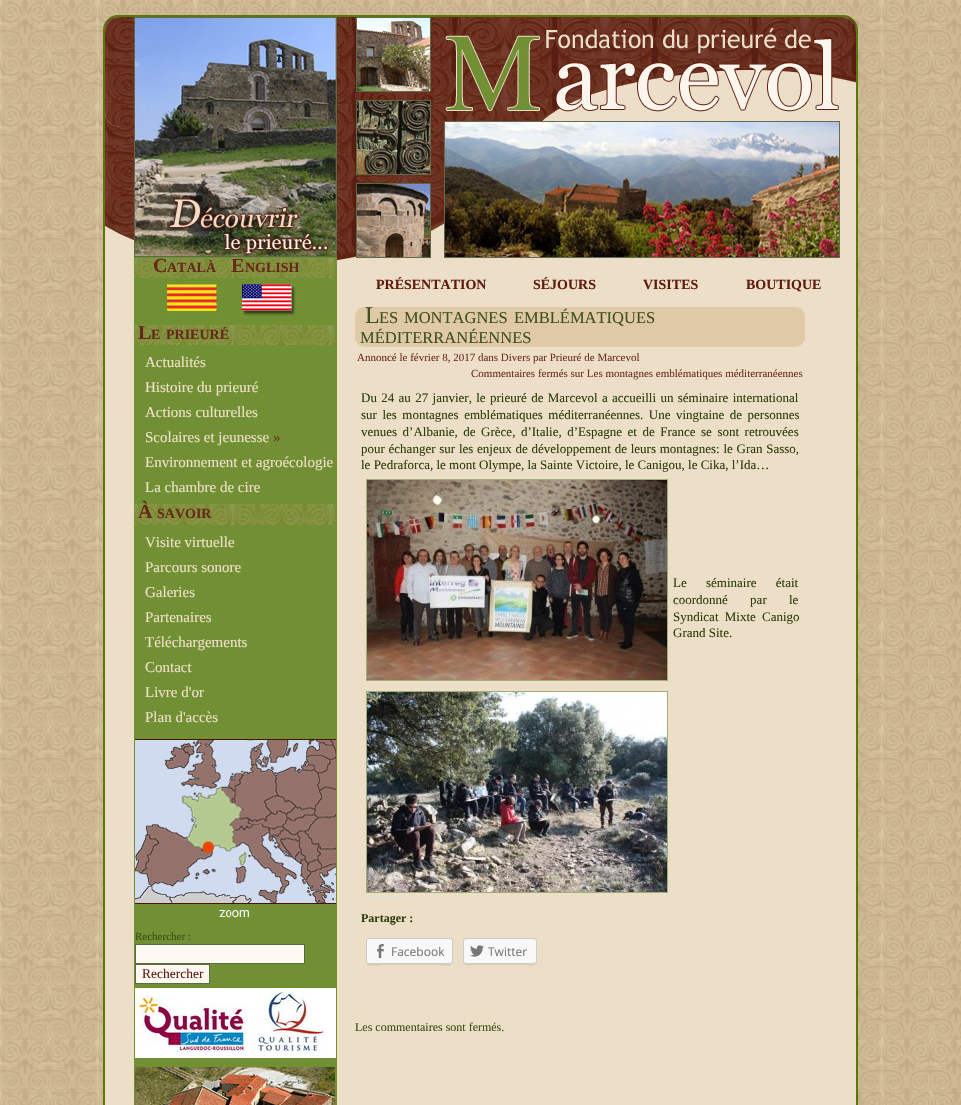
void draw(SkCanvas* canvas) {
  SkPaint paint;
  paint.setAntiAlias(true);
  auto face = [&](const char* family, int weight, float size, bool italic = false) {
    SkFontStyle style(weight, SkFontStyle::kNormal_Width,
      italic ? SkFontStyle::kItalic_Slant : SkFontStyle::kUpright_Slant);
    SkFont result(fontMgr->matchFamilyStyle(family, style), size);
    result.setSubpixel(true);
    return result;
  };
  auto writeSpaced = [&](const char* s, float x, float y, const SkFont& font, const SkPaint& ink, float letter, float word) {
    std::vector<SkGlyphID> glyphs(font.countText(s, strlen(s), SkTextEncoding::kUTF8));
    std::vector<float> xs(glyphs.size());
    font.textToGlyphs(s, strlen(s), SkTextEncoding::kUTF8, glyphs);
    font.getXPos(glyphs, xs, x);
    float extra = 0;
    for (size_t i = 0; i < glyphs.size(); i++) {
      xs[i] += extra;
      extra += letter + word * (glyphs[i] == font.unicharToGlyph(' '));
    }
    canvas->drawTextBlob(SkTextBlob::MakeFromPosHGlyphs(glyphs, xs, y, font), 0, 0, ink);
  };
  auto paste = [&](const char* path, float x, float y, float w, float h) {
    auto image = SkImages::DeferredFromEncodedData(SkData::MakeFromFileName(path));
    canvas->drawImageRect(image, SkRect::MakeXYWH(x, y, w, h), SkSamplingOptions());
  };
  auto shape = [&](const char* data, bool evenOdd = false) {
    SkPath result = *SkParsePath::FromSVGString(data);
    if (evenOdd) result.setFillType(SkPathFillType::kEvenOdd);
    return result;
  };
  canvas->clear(0xffffffff);
  paste("img/1.png", 0, 0, 961, 1105);
  paint.setColor(0xffeddec7);
  canvas->drawRoundRect(SkRect::MakeXYWH(104, 16, 753, 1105), 14, 14, paint);
  paint.setStroke(true);
  paint.setStrokeWidth(2);
  paint.setColor(0xff5a780a);
  canvas->drawRoundRect(SkRect::MakeXYWH(104, 16, 753, 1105), 14, 14, paint);
  paste("img/2.png", 105, 17, 751, 250);
  paint.setStroke(false);
  paint.setColor(0xffeddec7);
  canvas->drawRoundRect(SkRect::MakeXYWH(105, 17, 751, 110), 15, 15, paint);
  paste("img/3.png", 105, 17, 751, 110);
  paint.setColor(0xff719033);
  canvas->drawRect(SkRect::MakeXYWH(134, 287, 203, 818), paint);
  paste("img/15.png", 105, 267, 751, 20);
  paste("img/4.png", 135, 258, 200, 20);
  paste("img/5.png", 167, 278, 56, 38);
  paste("img/6.png", 238, 278, 64, 38);
  paste("img/4.png", 135, 325, 200, 20);
  paste("img/7.png", 135, 504, 200, 21);
  paste("img/8.png", 135, 739, 201, 179);
  paint.setColor(0xfffdf8f2);
  canvas->drawRect(SkRect::MakeXYWH(135.5f, 944.5f, 169, 19), paint);
  paint.setStroke(true);
  paint.setStrokeWidth(1);
  paint.setColor(0xff5d6a47);
  canvas->drawRect(SkRect::MakeXYWH(135.5f, 944.5f, 169, 19), paint);
  paint.setStroke(false);
  paint.setColor(0xfffdf8f2);
  canvas->drawRect(SkRect::MakeXYWH(135.5f, 964.5f, 74, 19), paint);
  paint.setStroke(true);
  paint.setColor(0xff5d6a47);
  canvas->drawRect(SkRect::MakeXYWH(135.5f, 964.5f, 74, 19), paint);
  paste("img/9.png", 135, 988, 201, 70);
  paste("img/10.png", 135, 1067, 200, 38);
  paint.setStroke(false);
  paint.setColor(0xffdfc9a7);
  canvas->drawRoundRect(SkRect::MakeXYWH(355, 307, 450, 40), 10, 10, paint);
  paint.setStroke(true);
  paint.setColor(0xff9caf78);
  canvas->drawRect(SkRect::MakeXYWH(366.5f, 479.5f, 301, 201), paint);
  paste("img/11.png", 367, 480, 300, 200);
  canvas->drawRect(SkRect::MakeXYWH(366.5f, 691.5f, 301, 201), paint);
  paste("img/12.png", 367, 692, 300, 200);
  paint.setStroke(false);
  paint.setColor(0xffdddddd);
  canvas->drawRect(SkRect::MakeXYWH(361, 898, 52, 1), paint);
  paint.setColor(0xffdaccb7);
  canvas->drawPath(shape("M366 961C366 969 379 965 382 965H436C440 965 453 969 453 961C453 963 452 964 450 964H369C367 964 366 963 366 961Z"), paint);
  paint.setColor(0xfff8f8f8);
  canvas->drawRoundRect(SkRect::MakeXYWH(366.5f, 938.5f, 86, 25), 2.5f, 2.5f, paint);
  paint.setStroke(true);
  paint.setColor(0xffcccccc);
  canvas->drawRoundRect(SkRect::MakeXYWH(366.5f, 938.5f, 86, 25), 2.5f, 2.5f, paint);
  paste("img/13.png", 377, 944, 7, 14);
  paint.setStroke(false);
  paint.setColor(0xffdaccb7);
  canvas->drawPath(shape("M463 961C463 968 473 965 477 965H523C527 965 537 968 537 961C537 963 536 964 534 964H466C464 964 463 963 463 961Z"), paint);
  paint.setColor(0xfff8f8f8);
  canvas->drawRoundRect(SkRect::MakeXYWH(463.5f, 938.5f, 73, 25), 2.5f, 2.5f, paint);
  paint.setStroke(true);
  paint.setColor(0xffcccccc);
  canvas->drawRoundRect(SkRect::MakeXYWH(463.5f, 938.5f, 73, 25), 2.5f, 2.5f, paint);
  paste("img/14.png", 470, 945, 14, 12);
  auto f0 = face("Liberation Serif", 700, 20);
  paint.setStroke(false);
  paint.setColor(0xff67291a);
  canvas->drawString("C", 153, 272, f0, paint);
  auto f1 = face("Liberation Serif", 700, 14);
  canvas->drawString("ATALÀ", 167, 272, f1, paint);
  canvas->drawString("E", 231, 272, f0, paint);
  canvas->drawString("NGLISH", 245, 272, f1, paint);
  canvas->drawString("L", 138, 339, f0, paint);
  canvas->drawString("E", 151, 339, f1, paint);
  canvas->drawString("PRIEURÉ", 166, 339, f1, paint);
  auto f2 = face("Liberation Serif", 400, 15);
  paint.setColor(0xffeddec7);
  {
    const struct { const char* s; float x, y; } items[] = {
      {"Actualités", 145, 367},
      {"Histoire du prieuré", 145, 392},
      {"Actions culturelles", 145, 417},
      {"Scolaires et jeunesse", 145, 442},
    };
    for (auto [s, x, y] : items) {
      canvas->drawString(s, x, y, f2, paint);
    }
  }
  paint.setColor(0xff6e3023);
  canvas->drawString("»", 273, 442, f2, paint);
  paint.setColor(0xffeddec7);
  canvas->drawString("Environnement et agroécologie", 145, 467, f2, paint);
  canvas->drawString("La chambre de cire", 145, 492, f2, paint);
  paint.setColor(0xff67291a);
  canvas->drawString("À", 138, 518, f0, paint);
  canvas->drawString("SAVOIR", 157, 518, f1, paint);
  paint.setColor(0xffeddec7);
  {
    const struct { const char* s; float x, y; } items[] = {
      {"Visite virtuelle", 145, 547},
      {"Parcours sonore", 145, 572},
      {"Galeries", 145, 597},
      {"Partenaires", 145, 622},
      {"Téléchargements", 145, 647},
      {"Contact", 145, 672},
      {"Livre d'or", 145, 697},
      {"Plan d'accès", 145, 722},
    };
    for (auto [s, x, y] : items) {
      canvas->drawString(s, x, y, f2, paint);
    }
  }
  auto f3 = face("Liberation Serif", 400, 11);
  paint.setColor(0xff3b4f14);
  canvas->drawString("Rechercher :", 135, 940, f3, paint);
  auto f4 = face("Liberation Serif", 400, 13.5f);
  paint.setColor(0xff5f1d10);
  canvas->drawString("Rechercher", 142, 978, f4, paint);
  auto f5 = face("Liberation Serif", 400, 24);
  paint.setColor(0xff404f22);
  canvas->drawString("L", 365, 323, f5, paint);
  auto f6 = face("Liberation Serif", 400, 16.5f);
  {
    const struct { const char* s; float x, y; } items[] = {
      {"ES", 379, 323},
      {"MONTAGNES", 404, 323},
      {"EMBLÉMATIQUES", 514, 323},
      {"MÉDITERRANÉENNES", 360, 343},
    };
    for (auto [s, x, y] : items) {
      canvas->drawString(s, x, y, f6, paint);
    }
  }
  paint.setColor(0xff6e3023);
  canvas->drawString("Annoncé le février 8, 2017 dans Divers par Prieuré de Marcevol", 357, 361, f3, paint);
  canvas->drawString("Commentaires fermés sur Les montagnes emblématiques méditerranéennes", 471, 377, f3, paint);
  auto f7 = face("Liberation Serif", 400, 13);
  paint.setColor(0xff2e3f0c);
  writeSpaced("Du 24 au 27 janvier, le prieuré de Marcevol a accueilli un séminaire international", 361, 402, f7, paint, 0, 1.1f);
  writeSpaced("sur les montagnes emblématiques méditerranéennes. Une vingtaine de personnes", 361, 419, f7, paint, 0, 2.25f);
  writeSpaced("venues d’Albanie, de Grèce, d’Italie, d’Espagne et de France se sont retrouvées", 361, 436, f7, paint, 0, 2.25f);
  writeSpaced("pour échanger sur les enjeux de développement de leurs montagnes: le Gran Sasso,", 361, 453, f7, paint, 0, 0.5f);
  canvas->drawString("le Pedraforca, le mont Olympe, la Sainte Victoire, le Canigou, le Cika, l’Ida…", 361, 469, f7, paint);
  writeSpaced("Le séminaire était", 673, 587, f7, paint, 0, 16);
  writeSpaced("coordonné par le", 673, 604, f7, paint, 0, 19);
  writeSpaced("Syndicat Mixte Canigo", 673, 621, f7, paint, 0, 3);
  canvas->drawString("Grand Site.", 673, 637, f7, paint);
  auto f8 = face("Liberation Serif", 700, 12);
  canvas->drawString("Partager :", 361, 922, f8, paint);
  auto f9 = face("Open Sans", 400, 12);
  paint.setColor(0xff777777);
  canvas->drawString("Facebook", 391, 956, f9, paint);
  canvas->drawString("Twitter", 488, 956, f9, paint);
  auto f10 = face("Liberation Serif", 400, 12);
  paint.setColor(0xff3b4f14);
  canvas->drawString("Les commentaires sont fermés.", 355, 1031, f10, paint);
  paint.setColor(0xff5f1d10);
  {
    const struct { const char* s; float x, y; } items[] = {
      {"PRÉSENTATION", 376, 289},
      {"SÉJOURS", 533, 289},
      {"VISITES", 643, 289},
      {"BOUTIQUE", 746, 289},
    };
    for (auto [s, x, y] : items) {
      canvas->drawString(s, x, y, f1, paint);
    }
  }
}
